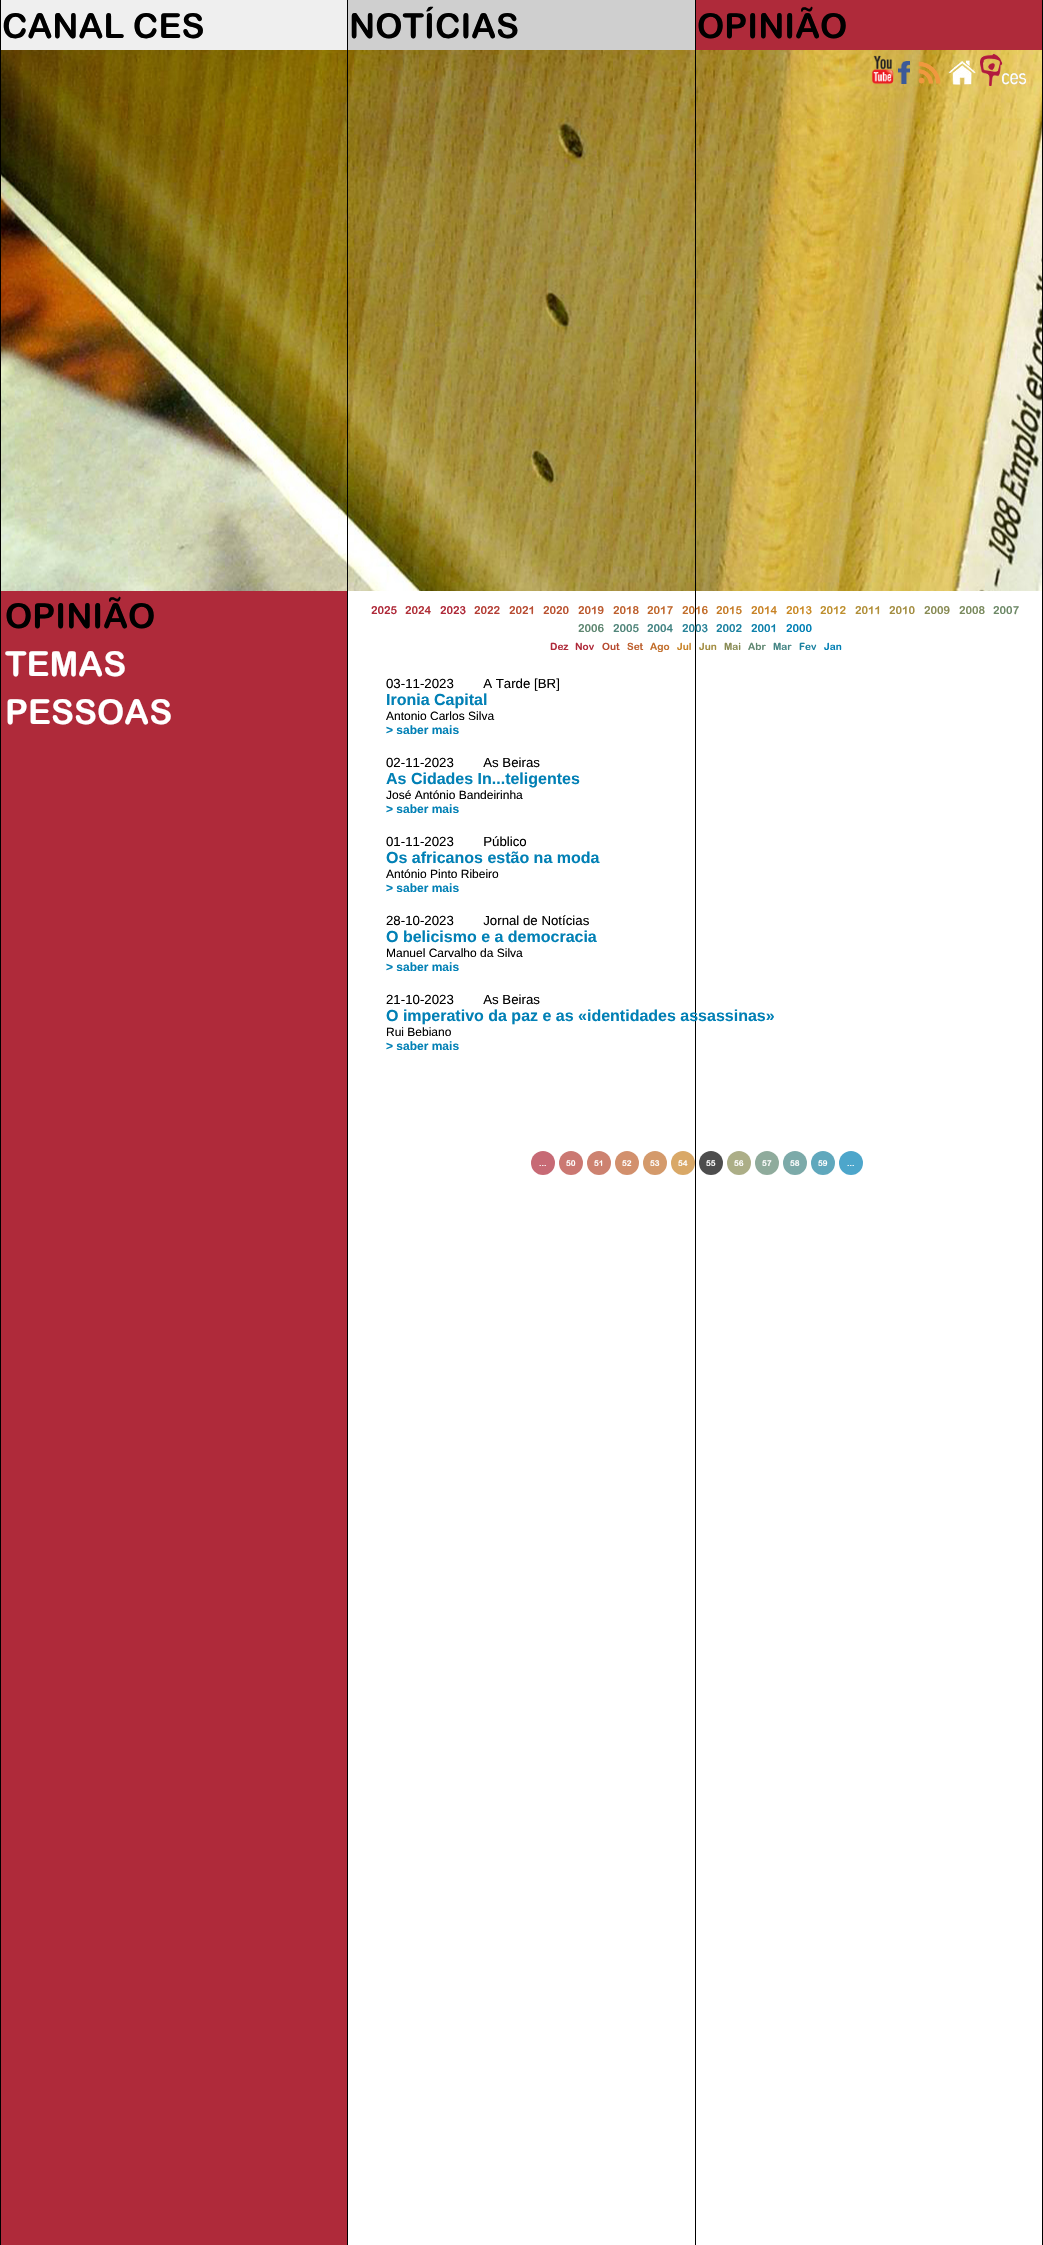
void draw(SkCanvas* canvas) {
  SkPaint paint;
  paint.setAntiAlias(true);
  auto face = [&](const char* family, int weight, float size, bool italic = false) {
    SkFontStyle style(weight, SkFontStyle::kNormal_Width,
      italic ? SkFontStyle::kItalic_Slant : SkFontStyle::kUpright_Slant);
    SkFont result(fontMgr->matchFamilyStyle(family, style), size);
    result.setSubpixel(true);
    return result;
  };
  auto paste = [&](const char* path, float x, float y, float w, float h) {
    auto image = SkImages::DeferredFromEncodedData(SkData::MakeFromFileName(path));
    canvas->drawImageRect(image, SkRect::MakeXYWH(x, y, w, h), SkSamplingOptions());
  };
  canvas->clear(0xffefefef);
  paint.setColor(0xff000000);
  canvas->drawRect(SkRect::MakeXYWH(0, 0, 1, 2245), paint);
  paint.setColor(0xffcfcfcf);
  canvas->drawRect(SkRect::MakeXYWH(348, 0, 347, 50), paint);
  paste("img/1.png", 1, 50, 1041, 541);
  {
    const struct { float x, y, w, h; SkColor color; } items[] = {
      {347, 0, 1, 2245, 0xff000000},
      {696, 0, 346, 50, 0xffaf2a3a},
      {1042, 0, 1, 2245, 0xff000000},
      {348, 591, 694, 1654, 0xffffffff},
      {695, 0, 1, 2245, 0xff000000},
    };
    for (auto [x, y, w, h, color] : items) {
      paint.setColor(color);
      canvas->drawRect(SkRect::MakeXYWH(x, y, w, h), paint);
    }
  }
  paste("img/2.png", 872, 55, 22, 30);
  paste("img/3.png", 898, 61, 12, 23);
  paste("img/4.png", 918, 61, 23, 23);
  paste("img/5.png", 948, 60, 28, 25);
  paste("img/6.png", 980, 54, 46, 32);
  paint.setColor(0xffaf2a3a);
  canvas->drawRect(SkRect::MakeXYWH(1, 591, 346, 1654), paint);
  paint.setColor(0xffc76a75);
  canvas->drawCircle(543, 1163, 12, paint);
  paint.setColor(0xffcb7872);
  canvas->drawCircle(571, 1163, 12, paint);
  paint.setColor(0xffcd8270);
  canvas->drawCircle(599, 1163, 12, paint);
  paint.setColor(0xffd2906d);
  canvas->drawCircle(627, 1163, 12, paint);
  paint.setColor(0xffd49a6b);
  canvas->drawCircle(655, 1163, 12, paint);
  paint.setColor(0xffd9a867);
  canvas->drawCircle(683, 1163, 12, paint);
  paint.setColor(0xff4d4d4d);
  canvas->drawCircle(711, 1163, 12, paint);
  paint.setColor(0xffacae87);
  canvas->drawCircle(739, 1163, 12, paint);
  paint.setColor(0xff8fab9c);
  canvas->drawCircle(767, 1163, 12, paint);
  paint.setColor(0xff7caaa9);
  canvas->drawCircle(795, 1163, 12, paint);
  paint.setColor(0xff60a8bd);
  canvas->drawCircle(823, 1163, 12, paint);
  paint.setColor(0xff4da6cb);
  canvas->drawCircle(851, 1163, 12, paint);
  auto f0 = face("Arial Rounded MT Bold", 700, 34.5f);
  paint.setColor(0xff000000);
  {
    const struct { const char* s; float x, y; } items[] = {
      {"CANAL CES", 2, 38},
      {"NOTÍCIAS", 349, 38},
      {"OPINIÃO", 697, 38},
      {"OPINIÃO", 5, 628},
    };
    for (auto [s, x, y] : items) {
      canvas->drawString(s, x, y, f0, paint);
    }
  }
  paint.setColor(0xffffffff);
  canvas->drawString("TEMAS", 5, 676, f0, paint);
  canvas->drawString("PESSOAS", 5, 724, f0, paint);
  auto f1 = face("Arial Rounded MT Bold", 700, 11);
  paint.setColor(0xffaf2a3a);
  canvas->drawString("2025", 371, 614, f1, paint);
  paint.setColor(0xffb03038);
  canvas->drawString("2024", 405, 614, f1, paint);
  paint.setColor(0xffaf2a3a);
  canvas->drawString("2023", 440, 614, f1, paint);
  paint.setColor(0xffb43e35);
  canvas->drawString("2022", 474, 614, f1, paint);
  paint.setColor(0xffb84c32);
  canvas->drawString("2021", 509, 614, f1, paint);
  paint.setColor(0xffba5331);
  canvas->drawString("2020", 543, 614, f1, paint);
  paint.setColor(0xffbc5a2f);
  canvas->drawString("2019", 578, 614, f1, paint);
  paint.setColor(0xffbe602e);
  canvas->drawString("2018", 613, 614, f1, paint);
  paint.setColor(0xffc0672c);
  canvas->drawString("2017", 647, 614, f1, paint);
  paint.setColor(0xffc26e2b);
  canvas->drawString("2016", 682, 614, f1, paint);
  paint.setColor(0xffc67c28);
  canvas->drawString("2015", 716, 614, f1, paint);
  paint.setColor(0xffc88326);
  canvas->drawString("2014", 751, 614, f1, paint);
  paint.setColor(0xffca8a25);
  canvas->drawString("2013", 786, 614, f1, paint);
  paint.setColor(0xffbe8f2d);
  canvas->drawString("2012", 820, 614, f1, paint);
  paint.setColor(0xffb08e37);
  canvas->drawString("2011", 855, 614, f1, paint);
  paint.setColor(0xffa38d41);
  canvas->drawString("2010", 889, 614, f1, paint);
  paint.setColor(0xff888b54);
  canvas->drawString("2009", 924, 614, f1, paint);
  paint.setColor(0xff7a8a5e);
  canvas->drawString("2008", 959, 614, f1, paint);
  paint.setColor(0xff6d8967);
  canvas->drawString("2007", 993, 614, f1, paint);
  paint.setColor(0xff5f8771);
  canvas->drawString("2006", 578, 632, f1, paint);
  paint.setColor(0xff52867b);
  canvas->drawString("2005", 613, 632, f1, paint);
  paint.setColor(0xff448584);
  canvas->drawString("2004", 647, 632, f1, paint);
  paint.setColor(0xff298398);
  canvas->drawString("2003", 682, 632, f1, paint);
  paint.setColor(0xff1c82a1);
  canvas->drawString("2002", 716, 632, f1, paint);
  paint.setColor(0xff0e81ab);
  canvas->drawString("2001", 751, 632, f1, paint);
  paint.setColor(0xff0180b5);
  canvas->drawString("2000", 786, 632, f1, paint);
  auto f2 = face("Arial Rounded MT Bold", 700, 10);
  paint.setColor(0xffaf2a3a);
  canvas->drawString("Dez", 550, 650, f2, paint);
  canvas->drawString("Nov", 575, 650, f2, paint);
  paint.setColor(0xffb84c32);
  canvas->drawString("Out", 602, 650, f2, paint);
  paint.setColor(0xffbe602e);
  canvas->drawString("Set", 627, 650, f2, paint);
  paint.setColor(0xffc26e2b);
  canvas->drawString("Ago", 650, 650, f2, paint);
  paint.setColor(0xffc88326);
  canvas->drawString("Jul", 677, 650, f2, paint);
  paint.setColor(0xffa38d41);
  canvas->drawString("Jun", 699, 650, f2, paint);
  paint.setColor(0xff888b54);
  canvas->drawString("Mai", 724, 650, f2, paint);
  paint.setColor(0xff5f8771);
  canvas->drawString("Abr", 748, 650, f2, paint);
  paint.setColor(0xff448584);
  canvas->drawString("Mar", 773, 650, f2, paint);
  paint.setColor(0xff1c82a1);
  canvas->drawString("Fev", 799, 650, f2, paint);
  paint.setColor(0xff0180b5);
  canvas->drawString("Jan", 824, 650, f2, paint);
  auto f3 = face("Liberation Sans", 400, 13.25f);
  paint.setColor(0xff000000);
  canvas->drawString("03-11-2023        A Tarde [BR]", 386, 688, f3, paint);
  auto f4 = face("Liberation Sans", 700, 16);
  paint.setColor(0xff0180b5);
  canvas->drawString("Ironia Capital", 386, 705, f4, paint);
  auto f5 = face("Liberation Sans", 400, 12);
  paint.setColor(0xff000000);
  canvas->drawString("Antonio Carlos Silva", 386, 720, f5, paint);
  auto f6 = face("Liberation Sans", 700, 12);
  paint.setColor(0xff0180b5);
  canvas->drawString("> saber mais", 386, 734, f6, paint);
  paint.setColor(0xff000000);
  canvas->drawString("02-11-2023        As Beiras", 386, 767, f3, paint);
  paint.setColor(0xff0180b5);
  canvas->drawString("As Cidades In...teligentes", 386, 784, f4, paint);
  paint.setColor(0xff000000);
  canvas->drawString("José António Bandeirinha", 386, 799, f5, paint);
  paint.setColor(0xff0180b5);
  canvas->drawString("> saber mais", 386, 813, f6, paint);
  paint.setColor(0xff000000);
  canvas->drawString("01-11-2023        Público", 386, 846, f3, paint);
  paint.setColor(0xff0180b5);
  canvas->drawString("Os africanos estão na moda", 386, 863, f4, paint);
  paint.setColor(0xff000000);
  canvas->drawString("António Pinto Ribeiro", 386, 878, f5, paint);
  paint.setColor(0xff0180b5);
  canvas->drawString("> saber mais", 386, 892, f6, paint);
  paint.setColor(0xff000000);
  canvas->drawString("28-10-2023        Jornal de Notícias", 386, 925, f3, paint);
  paint.setColor(0xff0180b5);
  canvas->drawString("O belicismo e a democracia", 386, 942, f4, paint);
  paint.setColor(0xff000000);
  canvas->drawString("Manuel Carvalho da Silva", 386, 957, f5, paint);
  paint.setColor(0xff0180b5);
  canvas->drawString("> saber mais", 386, 971, f6, paint);
  paint.setColor(0xff000000);
  canvas->drawString("21-10-2023        As Beiras", 386, 1004, f3, paint);
  paint.setColor(0xff0180b5);
  canvas->drawString("O imperativo da paz e as «identidades assassinas»", 386, 1021, f4, paint);
  paint.setColor(0xff000000);
  canvas->drawString("Rui Bebiano", 386, 1036, f5, paint);
  paint.setColor(0xff0180b5);
  canvas->drawString("> saber mais", 386, 1050, f6, paint);
  auto f7 = face("Arial Rounded MT Bold", 700, 8);
  paint.setColor(0xffffffff);
  {
    const struct { const char* s; float x, y; } items[] = {
      {"...", 539, 1166},
      {"50", 566, 1166},
      {"51", 594, 1166},
      {"52", 622, 1166},
      {"53", 650, 1166},
      {"54", 678, 1166},
      {"55", 706, 1166},
      {"56", 734, 1166},
      {"57", 762, 1166},
      {"58", 790, 1166},
      {"59", 818, 1166},
      {"...", 847, 1166},
    };
    for (auto [s, x, y] : items) {
      canvas->drawString(s, x, y, f7, paint);
    }
  }
}
